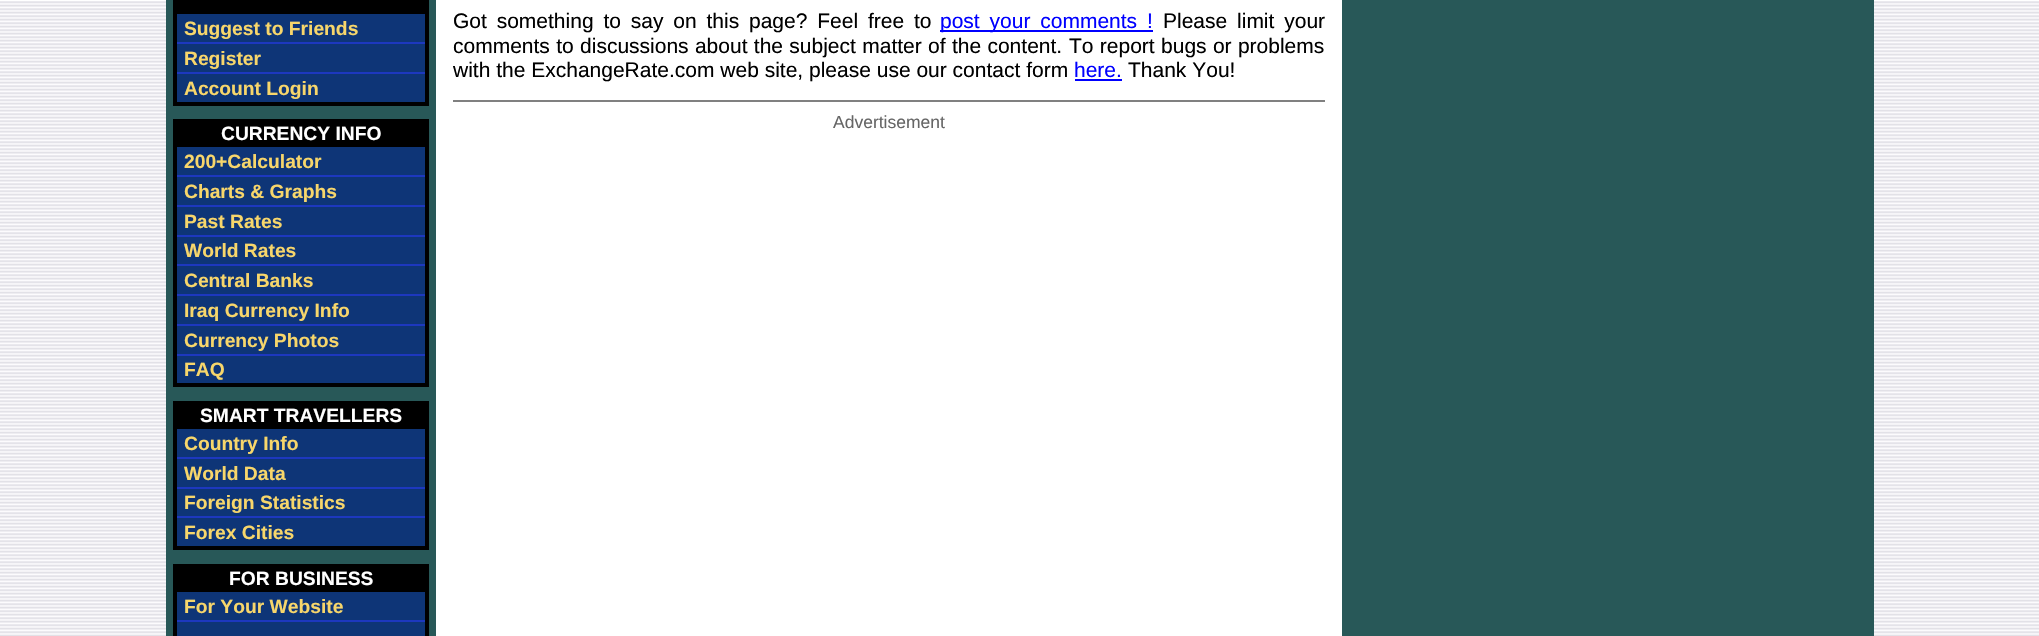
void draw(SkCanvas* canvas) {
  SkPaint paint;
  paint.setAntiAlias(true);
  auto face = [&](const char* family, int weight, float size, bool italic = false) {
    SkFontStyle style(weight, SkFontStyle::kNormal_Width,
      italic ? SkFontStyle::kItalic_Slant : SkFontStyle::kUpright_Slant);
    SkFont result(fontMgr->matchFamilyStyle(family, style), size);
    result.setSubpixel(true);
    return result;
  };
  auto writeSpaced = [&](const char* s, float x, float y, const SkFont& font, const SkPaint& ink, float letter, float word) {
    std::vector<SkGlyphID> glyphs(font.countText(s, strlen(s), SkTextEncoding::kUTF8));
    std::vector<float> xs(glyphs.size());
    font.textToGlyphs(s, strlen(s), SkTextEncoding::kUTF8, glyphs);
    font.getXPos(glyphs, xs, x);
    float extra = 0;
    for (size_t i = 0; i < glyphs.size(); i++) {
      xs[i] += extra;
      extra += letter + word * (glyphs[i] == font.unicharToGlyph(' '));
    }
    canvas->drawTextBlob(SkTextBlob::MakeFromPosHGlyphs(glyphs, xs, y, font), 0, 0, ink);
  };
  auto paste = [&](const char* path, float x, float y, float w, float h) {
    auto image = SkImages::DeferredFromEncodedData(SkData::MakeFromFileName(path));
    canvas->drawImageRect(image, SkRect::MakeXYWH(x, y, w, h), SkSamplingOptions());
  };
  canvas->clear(0xffffffff);
  paste("img/1.png", 0, 1, 2039, 635);
  {
    const struct { float x, y, w, h; SkColor color; } items[] = {
      {166, 0, 270, 636, 0xff285858},
      {175, 42, 252, 2, 0xff1d38bf},
      {175, 72, 252, 2, 0xff1d38bf},
      {425, 0, 4, 105, 0xff000000},
      {173, 102, 256, 4, 0xff000000},
      {173, 0, 4, 105, 0xff000000},
      {177, 0, 248, 14, 0xff000000},
      {177, 14, 248, 28, 0xff0e3577},
      {177, 44, 248, 28, 0xff0e3577},
      {177, 74, 248, 28, 0xff0e3577},
      {173, 119, 256, 4, 0xff000000},
      {175, 175, 252, 2, 0xff1d38bf},
      {175, 205, 252, 2, 0xff1d38bf},
      {175, 235, 252, 2, 0xff1d38bf},
      {175, 264, 252, 2, 0xff1d38bf},
      {175, 294, 252, 2, 0xff1d38bf},
      {175, 324, 252, 2, 0xff1d38bf},
      {175, 354, 252, 2, 0xff1d38bf},
      {425, 119, 4, 268, 0xff000000},
      {173, 383, 256, 4, 0xff000000},
      {173, 119, 4, 268, 0xff000000},
      {177, 123, 248, 24, 0xff000000},
      {177, 147, 248, 28, 0xff0e3577},
      {177, 177, 248, 28, 0xff0e3577},
      {177, 207, 248, 28, 0xff0e3577},
      {177, 237, 248, 27, 0xff0e3577},
      {177, 266, 248, 28, 0xff0e3577},
      {177, 296, 248, 28, 0xff0e3577},
      {177, 326, 248, 28, 0xff0e3577},
      {177, 356, 248, 27, 0xff0e3577},
      {173, 401, 256, 4, 0xff000000},
      {175, 457, 252, 2, 0xff1d38bf},
      {175, 487, 252, 2, 0xff1d38bf},
      {175, 516, 252, 2, 0xff1d38bf},
      {425, 401, 4, 149, 0xff000000},
      {173, 546, 256, 4, 0xff000000},
      {173, 401, 4, 149, 0xff000000},
      {177, 405, 248, 24, 0xff000000},
      {177, 429, 248, 28, 0xff0e3577},
      {177, 459, 248, 28, 0xff0e3577},
      {177, 489, 248, 27, 0xff0e3577},
      {177, 518, 248, 28, 0xff0e3577},
      {173, 564, 256, 4, 0xff000000},
      {175, 620, 252, 2, 0xff1d38bf},
      {425, 564, 4, 72, 0xff000000},
      {173, 564, 4, 72, 0xff000000},
      {177, 568, 248, 24, 0xff000000},
      {177, 592, 248, 28, 0xff0e3577},
      {177, 622, 248, 14, 0xff0e3577},
      {436, 1, 906, 635, 0xffffffff},
      {940, 30, 213, 2, 0xff0000ff},
      {1075, 79, 47, 2, 0xff0000ff},
      {453, 100, 872, 2, 0xff808080},
      {1342, 0, 532, 636, 0xff285858},
    };
    for (auto [x, y, w, h, color] : items) {
      paint.setColor(color);
      canvas->drawRect(SkRect::MakeXYWH(x, y, w, h), paint);
    }
  }
  auto f0 = face("Liberation Sans", 700, 19.25f);
  paint.setColor(0xfff7d66b);
  {
    const struct { const char* s; float x, y; } items[] = {
      {"Suggest to Friends", 184, 35},
      {"Register", 184, 65},
      {"Account Login", 184, 95},
    };
    for (auto [s, x, y] : items) {
      canvas->drawString(s, x, y, f0, paint);
    }
  }
  paint.setColor(0xffffffff);
  canvas->drawString("CURRENCY INFO", 221, 140, f0, paint);
  paint.setColor(0xfff7d66b);
  {
    const struct { const char* s; float x, y; } items[] = {
      {"200+Calculator", 184, 168},
      {"Charts & Graphs", 184, 198},
      {"Past Rates", 184, 228},
      {"World Rates", 184, 257},
      {"Central Banks", 184, 287},
      {"Iraq Currency Info", 184, 317},
      {"Currency Photos", 184, 347},
      {"FAQ", 184, 376},
    };
    for (auto [s, x, y] : items) {
      canvas->drawString(s, x, y, f0, paint);
    }
  }
  paint.setColor(0xffffffff);
  canvas->drawString("SMART TRAVELLERS", 200, 422, f0, paint);
  paint.setColor(0xfff7d66b);
  {
    const struct { const char* s; float x, y; } items[] = {
      {"Country Info", 184, 450},
      {"World Data", 184, 480},
      {"Foreign Statistics", 184, 509},
      {"Forex Cities", 184, 539},
    };
    for (auto [s, x, y] : items) {
      canvas->drawString(s, x, y, f0, paint);
    }
  }
  paint.setColor(0xffffffff);
  canvas->drawString("FOR BUSINESS", 229, 585, f0, paint);
  paint.setColor(0xfff7d66b);
  canvas->drawString("For Your Website", 184, 613, f0, paint);
  auto f1 = face("Liberation Sans", 400, 21);
  paint.setColor(0xff000000);
  writeSpaced("Got something to say on this page? Feel free to", 453, 28, f1, paint, 0, 4);
  paint.setColor(0xff0000ff);
  writeSpaced("post your comments !", 940, 28, f1, paint, 0, 4);
  paint.setColor(0xff000000);
  writeSpaced("Please limit your", 1163, 28, f1, paint, 0, 4);
  writeSpaced("comments to discussions about the subject matter of the content.", 453, 53, f1, paint, 0, 0.5f);
  writeSpaced("To report bugs or problems", 1069, 53, f1, paint, 0, 0.5f);
  canvas->drawString("with the ExchangeRate.com web site, please use our contact form", 453, 77, f1, paint);
  paint.setColor(0xff0000ff);
  canvas->drawString("here.", 1074, 77, f1, paint);
  paint.setColor(0xff000000);
  canvas->drawString("Thank You!", 1128, 77, f1, paint);
  auto f2 = face("Liberation Sans", 400, 17.5f);
  paint.setColor(0xff666666);
  canvas->drawString("Advertisement", 833, 128, f2, paint);
}
